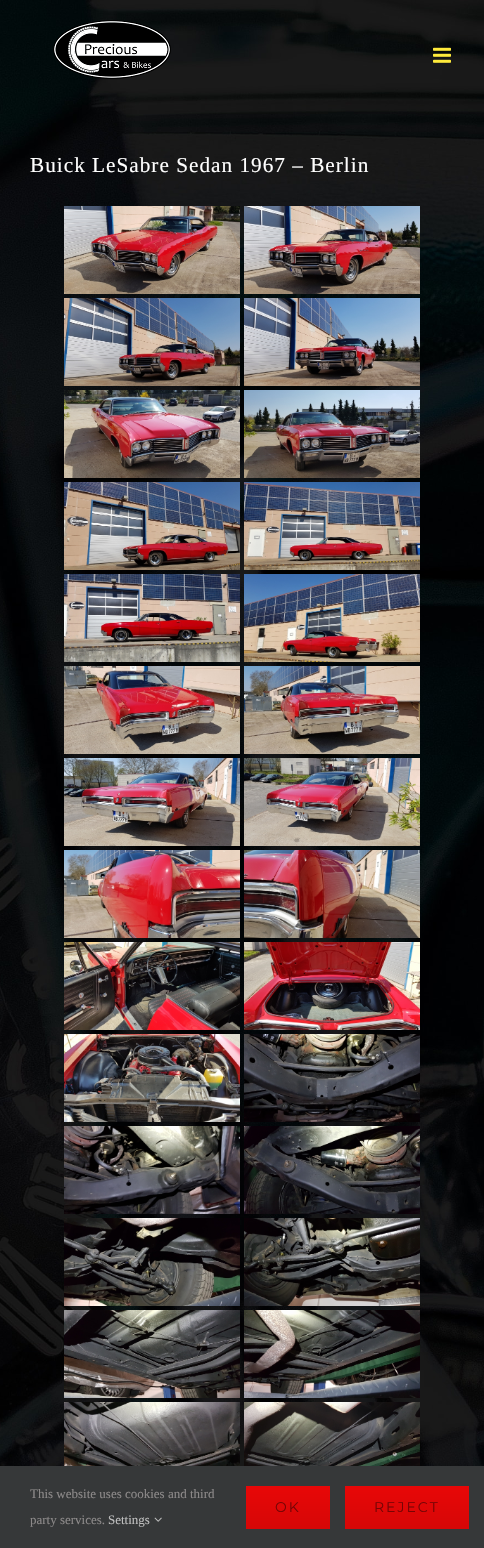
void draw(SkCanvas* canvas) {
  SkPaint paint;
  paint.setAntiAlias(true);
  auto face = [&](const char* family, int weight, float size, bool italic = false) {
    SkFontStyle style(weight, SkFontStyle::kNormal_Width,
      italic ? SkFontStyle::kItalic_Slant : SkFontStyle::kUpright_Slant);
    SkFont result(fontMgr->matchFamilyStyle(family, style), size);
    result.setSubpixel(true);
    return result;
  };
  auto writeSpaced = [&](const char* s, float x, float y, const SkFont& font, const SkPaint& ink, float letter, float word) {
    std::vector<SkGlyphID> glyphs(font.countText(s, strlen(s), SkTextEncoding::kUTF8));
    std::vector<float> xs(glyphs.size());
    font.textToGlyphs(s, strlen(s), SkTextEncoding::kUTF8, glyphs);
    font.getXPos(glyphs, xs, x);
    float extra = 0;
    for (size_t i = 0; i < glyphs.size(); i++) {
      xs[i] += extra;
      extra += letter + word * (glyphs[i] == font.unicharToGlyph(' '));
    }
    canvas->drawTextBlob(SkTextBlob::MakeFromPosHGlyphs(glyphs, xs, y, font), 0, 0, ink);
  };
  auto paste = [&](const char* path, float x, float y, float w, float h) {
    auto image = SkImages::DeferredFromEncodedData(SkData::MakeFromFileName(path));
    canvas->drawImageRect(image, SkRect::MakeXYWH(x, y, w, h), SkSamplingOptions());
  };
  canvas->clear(0xffffffff);
  paste("img/1.png", 0, 0, 484, 1466);
  paste("img/2.png", 53, 20, 118, 59);
  paste("img/3.png", 433, 47, 18, 16);
  paste("img/4.png", 64, 206, 176, 88);
  paste("img/5.png", 244, 206, 176, 88);
  paste("img/6.png", 64, 298, 176, 88);
  paste("img/7.png", 244, 298, 176, 88);
  paste("img/8.png", 64, 390, 176, 88);
  paste("img/9.png", 244, 390, 176, 88);
  paste("img/10.png", 64, 482, 176, 88);
  paste("img/11.png", 244, 482, 176, 88);
  paste("img/12.png", 64, 574, 176, 88);
  paste("img/13.png", 244, 574, 176, 88);
  paste("img/14.png", 64, 666, 176, 88);
  paste("img/15.png", 244, 666, 176, 88);
  paste("img/16.png", 64, 758, 176, 88);
  paste("img/17.png", 244, 758, 176, 88);
  paste("img/18.png", 64, 850, 176, 88);
  paste("img/19.png", 244, 850, 176, 88);
  paste("img/20.png", 64, 942, 176, 88);
  paste("img/21.png", 244, 942, 176, 88);
  paste("img/22.png", 64, 1034, 176, 88);
  paste("img/23.png", 244, 1034, 176, 88);
  paste("img/24.png", 64, 1126, 176, 88);
  paste("img/25.png", 244, 1126, 176, 88);
  paste("img/26.png", 64, 1218, 176, 88);
  paste("img/27.png", 244, 1218, 176, 88);
  paste("img/28.png", 64, 1310, 176, 88);
  paste("img/29.png", 244, 1310, 176, 88);
  paste("img/30.png", 64, 1402, 176, 64);
  paste("img/31.png", 244, 1402, 176, 64);
  paint.setColor(0xff363839);
  canvas->drawRect(SkRect::MakeXYWH(0, 1466, 484, 82), paint);
  paste("img/32.png", 154, 1517, 8, 5);
  {
    const SkColor colors[] = {0xffe80707, 0xffd60707};
    const float stops[] = {0, 1};
    const SkPoint ends[] = {{288, 1486}, {288, 1529}};
    paint.setShader(SkGradientShader::MakeLinear(ends, colors, stops, 2, SkTileMode::kClamp));
    paint.setAlpha(255);
  }
  canvas->drawRect(SkRect::MakeXYWH(246, 1486, 84, 43), paint);
  {
    const SkColor colors[] = {0xffe80707, 0xffd60707};
    const float stops[] = {0, 1};
    const SkPoint ends[] = {{407, 1486}, {407, 1529}};
    paint.setShader(SkGradientShader::MakeLinear(ends, colors, stops, 2, SkTileMode::kClamp));
    paint.setAlpha(255);
  }
  canvas->drawRect(SkRect::MakeXYWH(345, 1486, 124, 43), paint);
  auto f0 = face("Liberation Serif", 400, 21.25f);
  paint.setShader(nullptr);
  paint.setColor(0xffffffff);
  writeSpaced("Buick LeSabre Sedan 1967 – Berlin", 30, 172, f0, paint, 1, 0);
  auto f1 = face("Liberation Serif", 400, 13);
  paint.setColor(0xff8c8989);
  canvas->drawString("This website uses cookies and third", 30, 1498, f1, paint);
  canvas->drawString("party services.", 30, 1524, f1, paint);
  paint.setColor(0xffbfbfbf);
  canvas->drawString("Settings", 108, 1524, f1, paint);
  auto f2 = face("Montserrat", 400, 14);
  paint.setColor(0xff780404);
  writeSpaced("OK", 275, 1512, f2, paint, 2, 0);
  writeSpaced("REJECT", 374, 1512, f2, paint, 2, 0);
}
